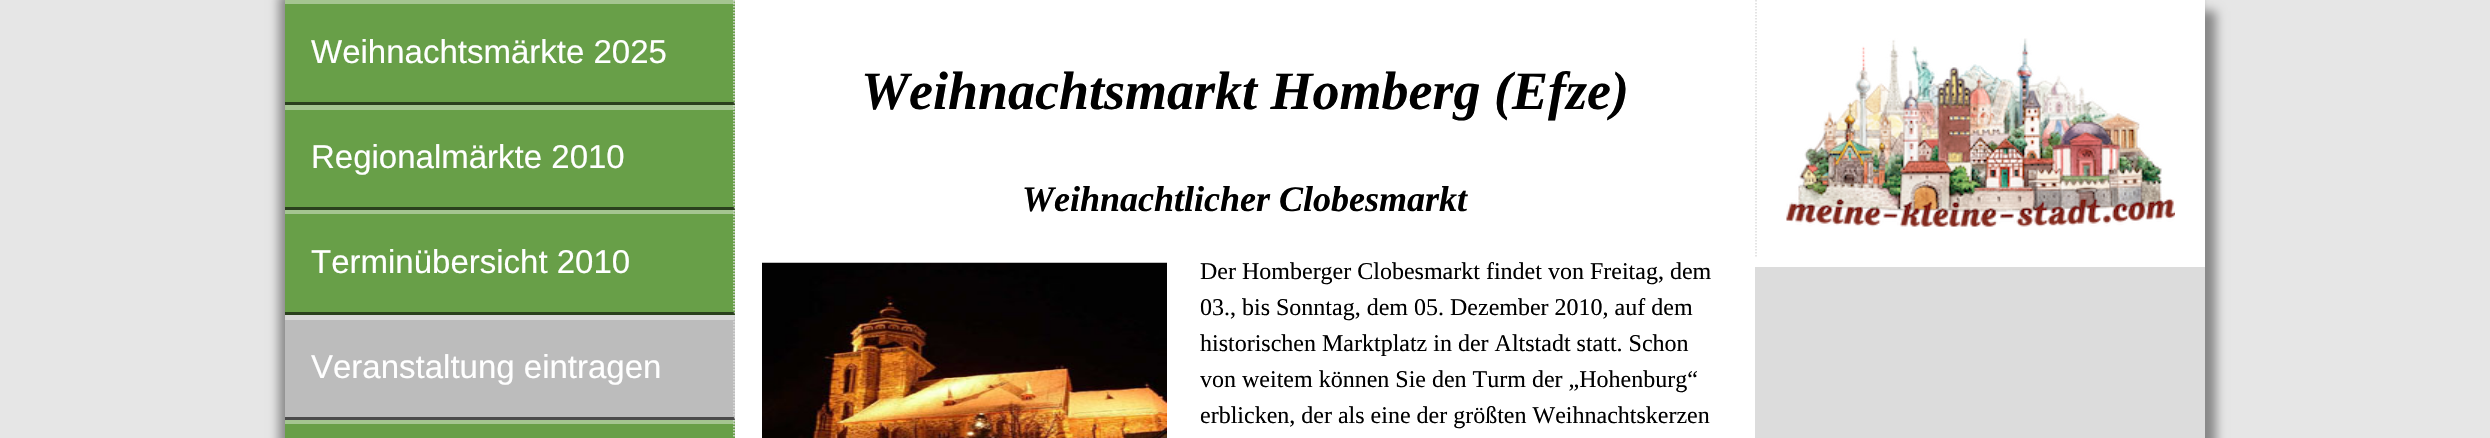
void draw(SkCanvas* canvas) {
  SkPaint paint;
  paint.setAntiAlias(true);
  auto face = [&](const char* family, int weight, float size, bool italic = false) {
    SkFontStyle style(weight, SkFontStyle::kNormal_Width,
      italic ? SkFontStyle::kItalic_Slant : SkFontStyle::kUpright_Slant);
    SkFont result(fontMgr->matchFamilyStyle(family, style), size);
    result.setSubpixel(true);
    return result;
  };
  auto paste = [&](const char* path, float x, float y, float w, float h) {
    auto image = SkImages::DeferredFromEncodedData(SkData::MakeFromFileName(path));
    canvas->drawImageRect(image, SkRect::MakeXYWH(x, y, w, h), SkSamplingOptions());
  };
  auto shape = [&](const char* data, bool evenOdd = false) {
    SkPath result = *SkParsePath::FromSVGString(data);
    if (evenOdd) result.setFillType(SkPathFillType::kEvenOdd);
    return result;
  };
  canvas->clear(0xffe6e6e6);
  paint.setColor(0xff888888);
  paint.setMaskFilter(SkMaskFilter::MakeBlur(kNormal_SkBlurStyle, 5));
  canvas->drawRect(SkRect::MakeXYWH(279, -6, 1920, 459), paint);
  paint.setMaskFilter(nullptr);
  paint.setMaskFilter(SkMaskFilter::MakeBlur(kNormal_SkBlurStyle, 5));
  canvas->drawRect(SkRect::MakeXYWH(296, 11, 1920, 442), paint);
  paint.setMaskFilter(nullptr);
  paint.setColor(0xffffffff);
  canvas->drawRect(SkRect::MakeXYWH(735, 0, 1020, 438), paint);
  paint.setColor(0xff689f48);
  canvas->drawRect(SkRect::MakeXYWH(285, 0, 450, 438), paint);
  paint.setColor(0xffa4c591);
  canvas->drawPath(shape("M285 0H735L734 4H285Z"), paint);
  paint.setStroke(true);
  paint.setStrokeWidth(1.5f);
  paint.setColor(0xffdcdcdc);
  paint.setPathEffect(SkDashPathEffect::Make({{1.5f, 1.5f}}, 0));
  canvas->drawPath(shape("M734 0V105"), paint);
  paint.setPathEffect(nullptr);
  paint.setStroke(false);
  paint.setColor(0x99000000);
  canvas->drawPath(shape("M735 105H285V102H734Z"), paint);
  paint.setColor(0xffa4c591);
  canvas->drawPath(shape("M285 105H735L734 110H285Z"), paint);
  paint.setStroke(true);
  paint.setColor(0xffdcdcdc);
  paint.setPathEffect(SkDashPathEffect::Make({{1.5f, 1.5f}}, 0));
  canvas->drawPath(shape("M734 105V210"), paint);
  paint.setPathEffect(nullptr);
  paint.setStroke(false);
  paint.setColor(0x99000000);
  canvas->drawPath(shape("M735 210H285V207H734Z"), paint);
  paint.setColor(0xffa4c591);
  canvas->drawPath(shape("M285 210H735L734 214H285Z"), paint);
  paint.setStroke(true);
  paint.setColor(0xffdcdcdc);
  paint.setPathEffect(SkDashPathEffect::Make({{1.5f, 1.5f}}, 0));
  canvas->drawPath(shape("M734 210V315"), paint);
  paint.setPathEffect(nullptr);
  paint.setStroke(false);
  paint.setColor(0x99000000);
  canvas->drawPath(shape("M735 315H285V312H734Z"), paint);
  paint.setColor(0xffbcbcbc);
  canvas->drawRect(SkRect::MakeXYWH(285, 315, 450, 105), paint);
  paint.setColor(0xffd7d7d7);
  canvas->drawPath(shape("M285 315H735L734 320H285Z"), paint);
  paint.setStroke(true);
  paint.setColor(0xffdcdcdc);
  paint.setPathEffect(SkDashPathEffect::Make({{1.5f, 1.5f}}, 0));
  canvas->drawPath(shape("M734 315V420"), paint);
  paint.setPathEffect(nullptr);
  paint.setStroke(false);
  paint.setColor(0x99000000);
  canvas->drawPath(shape("M735 420H285V417H734Z"), paint);
  paint.setColor(0xffa4c591);
  canvas->drawPath(shape("M285 420H735L734 424H285Z"), paint);
  paint.setStroke(true);
  paint.setColor(0xffdcdcdc);
  paint.setPathEffect(SkDashPathEffect::Make({{1.5f, 1.5f}}, 0));
  canvas->drawPath(shape("M734 420V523.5"), paint);
  paint.setPathEffect(nullptr);
  paste("img/1.png", 762, 262, 405, 176);
  paint.setStroke(false);
  canvas->drawRect(SkRect::MakeXYWH(1755, 267, 450, 171), paint);
  paint.setColor(0xffffffff);
  canvas->drawRect(SkRect::MakeXYWH(1755, 0, 450, 267), paint);
  paint.setStroke(true);
  paint.setColor(0xffdcdcdc);
  paint.setPathEffect(SkDashPathEffect::Make({{1.5f, 1.5f}}, 0));
  canvas->drawPath(shape("M1756 0V256.5"), paint);
  paint.setPathEffect(nullptr);
  paste("img/2.png", 1786, 38, 389, 189);
  auto f0 = face("Liberation Sans", 400, 33);
  paint.setStroke(false);
  paint.setColor(0xffffffff);
  {
    const struct { const char* s; float x, y; } items[] = {
      {"Weihnachtsmärkte 2025", 311, 63},
      {"Regionalmärkte 2010", 311, 168},
      {"Terminübersicht 2010", 311, 273},
      {"Veranstaltung eintragen", 311, 378},
    };
    for (auto [s, x, y] : items) {
      canvas->drawString(s, x, y, f0, paint);
    }
  }
  auto f1 = face("Liberation Serif", 700, 54, true);
  paint.setColor(0xff000000);
  canvas->drawString("Weihnachtsmarkt Homberg (Efze)", 861, 109, f1, paint);
  auto f2 = face("Liberation Serif", 700, 36, true);
  canvas->drawString("Weihnachtlicher Clobesmarkt", 1022, 211, f2, paint);
  auto f3 = face("Liberation Serif", 400, 24);
  {
    const struct { const char* s; float x, y; } items[] = {
      {"Der Homberger Clobesmarkt findet von Freitag, dem", 1200, 279},
      {"03., bis Sonntag, dem 05. Dezember 2010, auf dem", 1200, 315},
      {"historischen Marktplatz in der Altstadt statt. Schon", 1200, 351},
      {"von weitem können Sie den Turm der „Hohenburg“", 1200, 387},
      {"erblicken, der als eine der größten Weihnachtskerzen", 1200, 423},
    };
    for (auto [s, x, y] : items) {
      canvas->drawString(s, x, y, f3, paint);
    }
  }
}
